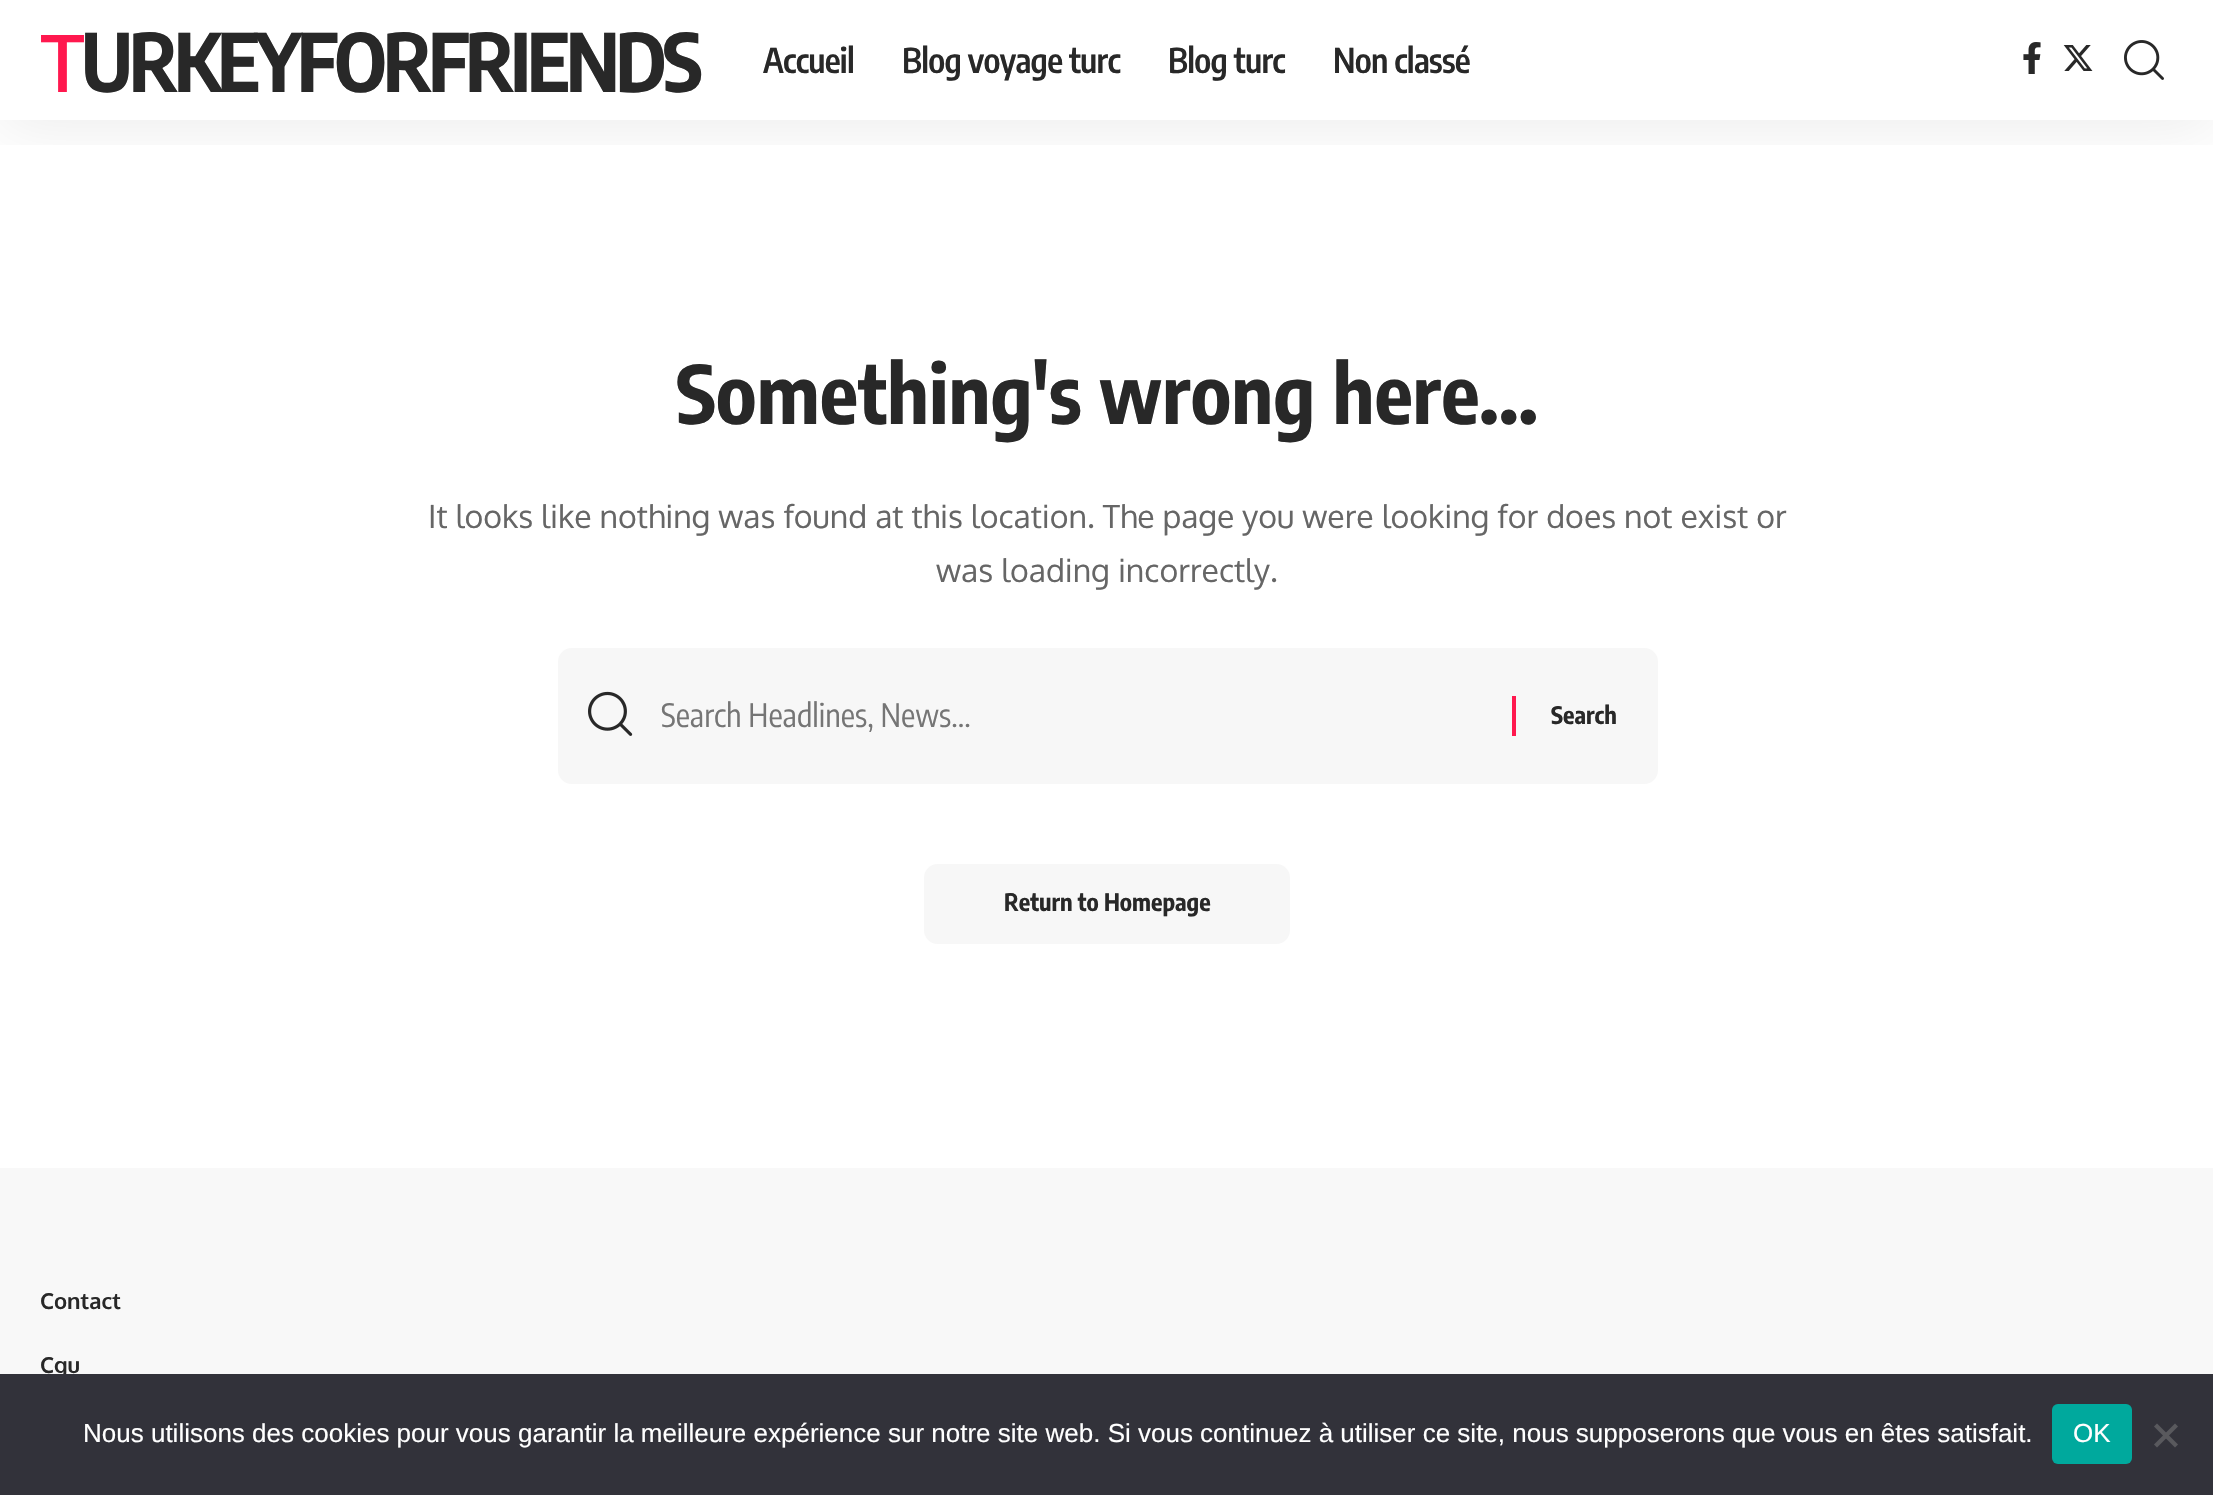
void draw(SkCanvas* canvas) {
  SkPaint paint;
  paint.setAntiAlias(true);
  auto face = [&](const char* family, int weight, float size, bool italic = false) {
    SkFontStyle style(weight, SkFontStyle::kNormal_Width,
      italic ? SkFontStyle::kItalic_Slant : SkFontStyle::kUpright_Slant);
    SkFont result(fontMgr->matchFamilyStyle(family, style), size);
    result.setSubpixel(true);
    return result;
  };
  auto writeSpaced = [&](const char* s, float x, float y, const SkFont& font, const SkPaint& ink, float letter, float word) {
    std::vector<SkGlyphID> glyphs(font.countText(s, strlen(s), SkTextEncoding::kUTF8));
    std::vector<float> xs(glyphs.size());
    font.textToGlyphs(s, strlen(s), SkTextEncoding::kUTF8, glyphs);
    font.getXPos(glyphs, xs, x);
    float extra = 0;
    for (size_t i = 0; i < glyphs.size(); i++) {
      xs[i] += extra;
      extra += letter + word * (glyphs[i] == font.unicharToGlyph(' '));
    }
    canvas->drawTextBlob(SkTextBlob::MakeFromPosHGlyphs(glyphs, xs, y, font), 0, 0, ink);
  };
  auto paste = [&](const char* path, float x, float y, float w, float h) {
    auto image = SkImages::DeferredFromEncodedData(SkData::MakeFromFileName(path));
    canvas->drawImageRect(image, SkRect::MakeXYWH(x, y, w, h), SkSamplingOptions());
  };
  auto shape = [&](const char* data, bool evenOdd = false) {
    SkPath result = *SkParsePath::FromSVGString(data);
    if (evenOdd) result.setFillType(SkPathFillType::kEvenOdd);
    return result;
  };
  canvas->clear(0xffffffff);
  canvas->save();
  canvas->clipRect(SkRect::MakeXYWH(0, 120, 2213, 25));
  paint.setColor(0x12000000);
  paint.setMaskFilter(SkMaskFilter::MakeBlur(kNormal_SkBlurStyle, 30));
  canvas->drawRect(SkRect::MakeXYWH(0, 8, 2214, 120), paint);
  paint.setMaskFilter(nullptr);
  canvas->restore();
  paste("img/1.png", 2023, 42, 18, 32);
  paste("img/2.png", 2063, 45, 30, 26);
  paste("img/3.png", 2124, 40, 40, 40);
  paint.setColor(0xfff7f7f7);
  canvas->drawRoundRect(SkRect::MakeXYWH(558, 648, 1100, 136), 14, 14, paint);
  paste("img/4.png", 588, 691, 45, 45);
  paint.setColor(0xffff184e);
  canvas->drawRect(SkRect::MakeXYWH(1512, 696, 4, 40), paint);
  paint.setColor(0xfff7f7f7);
  canvas->drawRoundRect(SkRect::MakeXYWH(924, 864, 366, 80), 14, 14, paint);
  paint.setColor(0xfff8f8f8);
  canvas->drawRect(SkRect::MakeXYWH(0, 1168, 2213, 206), paint);
  auto f0 = face("Noto Sans", 500, 80);
  paint.setColor(0xffff184e);
  writeSpaced("T", 40, 92, f0, paint, -4, 0);
  auto f1 = face("Encode Sans Condensed", 700, 80);
  paint.setColor(0xff282828);
  writeSpaced("URKEYFORFRIENDS", 81, 92, f1, paint, -4, 0);
  auto f2 = face("Encode Sans Condensed", 600, 34);
  {
    const struct { const char* s; float x, y; } items[] = {
      {"Accueil", 763, 73},
      {"Blog voyage turc", 902, 73},
      {"Blog turc", 1168, 73},
      {"Non classé", 1333, 73},
    };
    for (auto [s, x, y] : items) {
      writeSpaced(s, x, y, f2, paint, -0.7f, 0);
    }
  }
  canvas->drawString("Something's wrong here...", 676, 424, f1, paint);
  auto f3 = face("Oxygen", 400, 32);
  paint.setColor(0xff666666);
  canvas->drawString("It looks like nothing was found at this location. The page you were looking for does not exist or", 428, 528, f3, paint);
  canvas->drawString("was loading incorrectly.", 936, 582, f3, paint);
  auto f4 = face("Encode Sans Condensed", 400, 32);
  paint.setColor(0xff757575);
  canvas->drawString("Search Headlines, News...", 661, 727, f4, paint);
  auto f5 = face("Encode Sans Condensed", 700, 24);
  paint.setColor(0xff282828);
  canvas->drawString("Search", 1551, 724, f5, paint);
  canvas->drawString("Return to Homepage", 1004, 911, f5, paint);
  auto f6 = face("Oxygen", 700, 22);
  canvas->drawString("Contact", 40, 1309, f6, paint);
  canvas->drawString("Cgu", 40, 1373, f6, paint);
  paint.setColor(0xff32323a);
  canvas->drawRect(SkRect::MakeXYWH(0, 1374, 2213, 121), paint);
  auto f7 = face("Liberation Sans", 400, 26);
  paint.setColor(0xffffffff);
  canvas->drawString("Nous utilisons des cookies pour vous garantir la meilleure expérience sur notre site web. Si vous continuez à utiliser ce site, nous supposerons que vous en êtes satisfait.", 83, 1442, f7, paint);
  paint.setColor(0xff00a99d);
  canvas->drawRoundRect(SkRect::MakeXYWH(2052, 1404, 80, 60), 6, 6, paint);
  paint.setColor(0xffffffff);
  canvas->drawString("OK", 2073, 1442, f7, paint);
  paint.setColor(0xff59595d);
  canvas->drawPath(shape("M2175 1423.5L2178 1426.5L2157 1447.5L2154 1444.5Z"), paint);
  canvas->drawPath(shape("M2154 1426.5L2157 1423.5L2178 1444.5L2175 1447.5Z"), paint);
}
